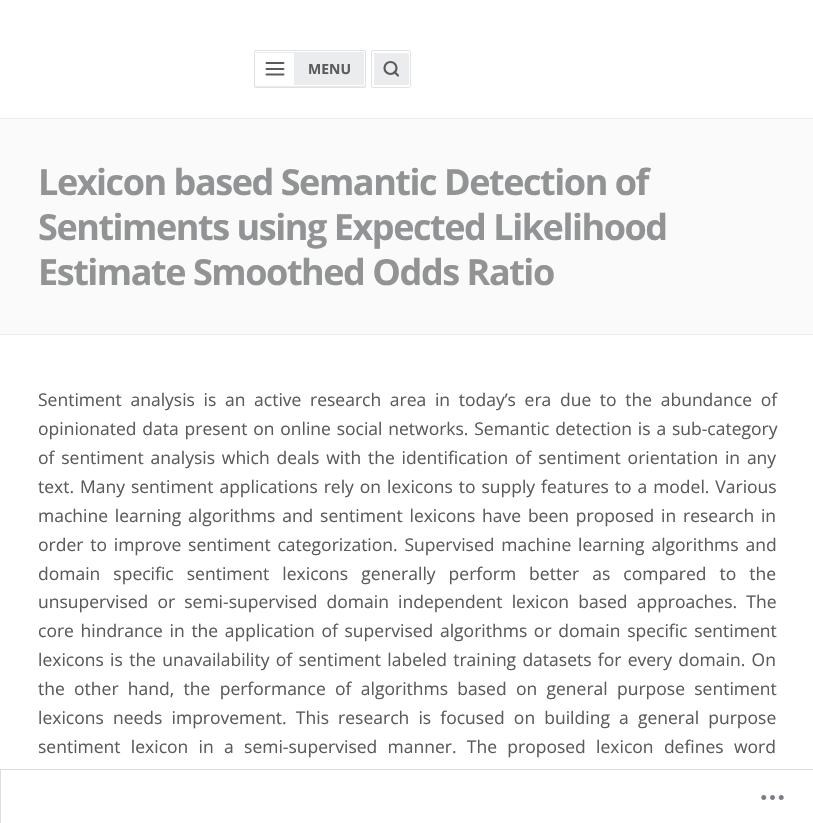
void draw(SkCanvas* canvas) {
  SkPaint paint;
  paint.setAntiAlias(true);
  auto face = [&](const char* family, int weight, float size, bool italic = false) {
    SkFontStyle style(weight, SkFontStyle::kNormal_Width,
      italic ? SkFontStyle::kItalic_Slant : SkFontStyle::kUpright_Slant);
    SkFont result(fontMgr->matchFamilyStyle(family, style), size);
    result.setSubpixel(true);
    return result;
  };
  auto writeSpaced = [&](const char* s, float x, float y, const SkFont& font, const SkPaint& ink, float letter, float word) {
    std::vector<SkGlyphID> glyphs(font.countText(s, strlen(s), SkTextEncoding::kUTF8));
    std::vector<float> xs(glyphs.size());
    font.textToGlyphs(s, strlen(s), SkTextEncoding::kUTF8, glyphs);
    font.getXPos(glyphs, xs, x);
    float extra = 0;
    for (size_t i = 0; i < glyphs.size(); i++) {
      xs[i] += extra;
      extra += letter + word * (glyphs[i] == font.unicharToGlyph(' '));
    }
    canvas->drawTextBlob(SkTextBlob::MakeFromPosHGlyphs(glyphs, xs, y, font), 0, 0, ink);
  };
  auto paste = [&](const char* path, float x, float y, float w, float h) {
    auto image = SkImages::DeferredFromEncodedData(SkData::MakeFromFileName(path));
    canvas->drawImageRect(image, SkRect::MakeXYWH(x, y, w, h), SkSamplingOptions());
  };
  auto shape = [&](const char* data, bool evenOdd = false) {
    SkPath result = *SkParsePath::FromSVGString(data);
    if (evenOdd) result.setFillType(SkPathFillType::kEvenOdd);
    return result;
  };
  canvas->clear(0xffffffff);
  paint.setColor(0xffebecee);
  canvas->drawRect(SkRect::MakeXYWH(0, 118, 813, 1), paint);
  canvas->drawRoundRect(SkRect::MakeXYWH(254, 50, 112, 38), 2.5f, 2.5f, paint);
  paint.setStroke(true);
  paint.setStrokeWidth(1);
  paint.setColor(0xffffffff);
  canvas->drawRoundRect(SkRect::MakeXYWH(255.5f, 51.5f, 109, 34), 0.5f, 0.5f, paint);
  paint.setColor(0xffe0e1e3);
  canvas->drawRoundRect(SkRect::MakeXYWH(254.5f, 50.5f, 111, 37), 2, 2, paint);
  paint.setStroke(false);
  paint.setColor(0xffffffff);
  canvas->drawRect(SkRect::MakeXYWH(256, 53, 38, 32), paint);
  paint.setStroke(true);
  paint.setStrokeWidth(1.9f);
  paint.setStrokeCap(SkPaint::kRound_Cap);
  paint.setStrokeJoin(SkPaint::kRound_Join);
  paint.setColor(0xff5a5b5c);
  canvas->drawPath(shape("M266.5 69H283.5M266.5 63H283.5M266.5 74.5H283.5"), paint);
  paint.setStrokeWidth(1);
  paint.setStrokeCap(SkPaint::kButt_Cap);
  paint.setStrokeJoin(SkPaint::kMiter_Join);
  paint.setColor(0xffe0e1e3);
  canvas->drawRoundRect(SkRect::MakeXYWH(371.5f, 50.5f, 39, 37), 2, 2, paint);
  paint.setStroke(false);
  paint.setColor(0xffebecee);
  canvas->drawRect(SkRect::MakeXYWH(374, 53, 35, 32), paint);
  paint.setStroke(true);
  paint.setStrokeWidth(2.2f);
  paint.setColor(0xff5a5b5c);
  canvas->drawCircle(390.5f, 68, 6, paint);
  paint.setStrokeCap(SkPaint::kRound_Cap);
  paint.setStrokeJoin(SkPaint::kRound_Join);
  canvas->drawPath(shape("M398 75.5L394.5 72"), paint);
  paint.setStroke(false);
  paint.setColor(0xfffafafa);
  canvas->drawRect(SkRect::MakeXYWH(0, 119, 813, 215), paint);
  paint.setColor(0xffebecee);
  canvas->drawRect(SkRect::MakeXYWH(0, 334, 813, 1), paint);
  paint.setStroke(true);
  paint.setStrokeWidth(1);
  paint.setStrokeCap(SkPaint::kButt_Cap);
  paint.setStrokeJoin(SkPaint::kMiter_Join);
  paint.setColor(0xfadcdcde);
  canvas->drawRect(SkRect::MakeXYWH(0.5f, 769.5f, 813, 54), paint);
  paste("img/1.png", 761, 795, 23, 5);
  auto f0 = face("Open Sans", 700, 14);
  paint.setStroke(false);
  paint.setColor(0xff5a5b5c);
  canvas->drawString("MENU", 308, 74, f0, paint);
  auto f1 = face("Open Sans", 700, 36);
  paint.setColor(0xff929394);
  {
    const struct { const char* s; float x, y; } items[] = {
      {"Lexicon based Semantic Detection of", 38, 195},
      {"Sentiments using Expected Likelihood", 38, 240},
      {"Estimate Smoothed Odds Ratio", 38, 285},
    };
    for (auto [s, x, y] : items) {
      writeSpaced(s, x, y, f1, paint, -1.45f, 0);
    }
  }
  auto f2 = face("Open Sans", 400, 17.5f);
  paint.setColor(0xff5a5b5c);
  writeSpaced("Sentiment analysis is an active research area in today’s era due to the abundance of", 38, 406, f2, paint, 0, 4.1f);
  writeSpaced("opinionated data present on online social networks. Semantic detection is a sub-category", 38, 435, f2, paint, 0, 1.25f);
  writeSpaced("of sentiment analysis which deals with the identification of sentiment orientation in any", 38, 464, f2, paint, 0, 2.25f);
  writeSpaced("text. Many sentiment applications rely on lexicons to supply features to a model. Various", 38, 493, f2, paint, 0, 1.4f);
  writeSpaced("machine learning algorithms and sentiment lexicons have been proposed in research in", 38, 522, f2, paint, 0, 2.25f);
  writeSpaced("order to improve sentiment categorization. Supervised machine learning algorithms and", 38, 551, f2, paint, 0, 2.25f);
  writeSpaced("domain specific sentiment lexicons generally perform better as compared to the", 38, 580, f2, paint, 0, 8.5f);
  writeSpaced("unsupervised or semi-supervised domain independent lexicon based approaches. The", 38, 608, f2, paint, 0, 4.6f);
  writeSpaced("core hindrance in the application of supervised algorithms or domain specific sentiment", 38, 637, f2, paint, 0, 2.1f);
  writeSpaced("lexicons is the unavailability of sentiment labeled training datasets for every domain. On", 38, 666, f2, paint, 0, 1.75f);
  writeSpaced("the other hand, the performance of algorithms based on general purpose sentiment", 38, 695, f2, paint, 0, 4.75f);
  writeSpaced("lexicons needs improvement. This research is focused on building a general purpose", 38, 724, f2, paint, 0, 4.6f);
  writeSpaced("sentiment lexicon in a semi-supervised manner. The proposed lexicon defines word", 38, 753, f2, paint, 0, 5.75f);
}
